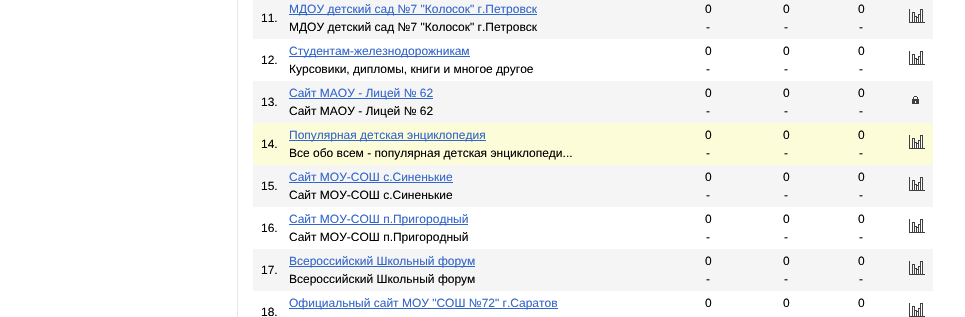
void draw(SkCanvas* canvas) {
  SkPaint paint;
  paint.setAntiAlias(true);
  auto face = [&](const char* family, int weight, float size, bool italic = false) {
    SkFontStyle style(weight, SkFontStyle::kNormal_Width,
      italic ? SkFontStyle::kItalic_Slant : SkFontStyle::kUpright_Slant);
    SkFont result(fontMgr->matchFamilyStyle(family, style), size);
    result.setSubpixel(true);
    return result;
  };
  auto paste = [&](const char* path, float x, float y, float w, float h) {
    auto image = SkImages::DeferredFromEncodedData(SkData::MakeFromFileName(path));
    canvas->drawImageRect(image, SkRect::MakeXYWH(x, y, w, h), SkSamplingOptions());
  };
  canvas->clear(0xffffffff);
  {
    const struct { float x, y, w, h; SkColor color; } items[] = {
      {237, 0, 1, 317, 0xffe6e6e6},
      {253, 0, 680, 39, 0xfff5f5f5},
      {289, 14, 248, 1, 0xff3366cc},
    };
    for (auto [x, y, w, h, color] : items) {
      paint.setColor(color);
      canvas->drawRect(SkRect::MakeXYWH(x, y, w, h), paint);
    }
  }
  paste("img/1.png", 909, 9, 16, 14);
  canvas->drawRect(SkRect::MakeXYWH(289, 56, 181, 1), paint);
  paste("img/2.png", 909, 51, 16, 14);
  paint.setColor(0xfff5f5f5);
  canvas->drawRect(SkRect::MakeXYWH(253, 81, 680, 42), paint);
  paint.setColor(0xff3366cc);
  canvas->drawRect(SkRect::MakeXYWH(289, 98, 144, 1), paint);
  paste("img/3.png", 912, 96, 7, 8);
  paint.setColor(0xfffcfcd9);
  canvas->drawRect(SkRect::MakeXYWH(253, 123, 680, 42), paint);
  paint.setColor(0xff3366cc);
  canvas->drawRect(SkRect::MakeXYWH(289, 140, 197, 1), paint);
  paste("img/4.png", 909, 135, 16, 14);
  paint.setColor(0xfff5f5f5);
  canvas->drawRect(SkRect::MakeXYWH(253, 165, 680, 42), paint);
  paint.setColor(0xff3366cc);
  canvas->drawRect(SkRect::MakeXYWH(289, 182, 164, 1), paint);
  paste("img/1.png", 909, 177, 16, 14);
  canvas->drawRect(SkRect::MakeXYWH(289, 224, 179, 1), paint);
  paste("img/2.png", 909, 219, 16, 14);
  paint.setColor(0xfff5f5f5);
  canvas->drawRect(SkRect::MakeXYWH(253, 249, 680, 42), paint);
  paint.setColor(0xff3366cc);
  canvas->drawRect(SkRect::MakeXYWH(289, 266, 186, 1), paint);
  paste("img/1.png", 909, 261, 16, 14);
  canvas->drawRect(SkRect::MakeXYWH(289, 308, 269, 1), paint);
  paste("img/2.png", 909, 303, 16, 14);
  auto f0 = face("Liberation Sans", 400, 12);
  paint.setColor(0xff000000);
  canvas->drawString("11.", 261, 22, f0, paint);
  paint.setColor(0xff3366cc);
  canvas->drawString("МДОУ детский сад №7 \"Колосок\" г.Петровск", 289, 13, f0, paint);
  paint.setColor(0xff000000);
  {
    const struct { const char* s; float x, y; } items[] = {
      {"МДОУ детский сад №7 \"Колосок\" г.Петровск", 289, 31},
      {"0", 705, 13},
      {"-", 706, 31},
      {"0", 783, 13},
      {"-", 784, 31},
      {"0", 858, 13},
      {"-", 859, 31},
      {"12.", 261, 64},
    };
    for (auto [s, x, y] : items) {
      canvas->drawString(s, x, y, f0, paint);
    }
  }
  paint.setColor(0xff3366cc);
  canvas->drawString("Студентам-железнодорожникам", 289, 55, f0, paint);
  paint.setColor(0xff000000);
  {
    const struct { const char* s; float x, y; } items[] = {
      {"Курсовики, дипломы, книги и многое другое", 289, 73},
      {"0", 705, 55},
      {"-", 706, 73},
      {"0", 783, 55},
      {"-", 784, 73},
      {"0", 858, 55},
      {"-", 859, 73},
      {"13.", 261, 106},
    };
    for (auto [s, x, y] : items) {
      canvas->drawString(s, x, y, f0, paint);
    }
  }
  paint.setColor(0xff3366cc);
  canvas->drawString("Сайт МАОУ - Лицей № 62", 289, 97, f0, paint);
  paint.setColor(0xff000000);
  {
    const struct { const char* s; float x, y; } items[] = {
      {"Сайт МАОУ - Лицей № 62", 289, 115},
      {"0", 705, 97},
      {"-", 706, 115},
      {"0", 783, 97},
      {"-", 784, 115},
      {"0", 858, 97},
      {"-", 859, 115},
      {"14.", 261, 148},
    };
    for (auto [s, x, y] : items) {
      canvas->drawString(s, x, y, f0, paint);
    }
  }
  paint.setColor(0xff3366cc);
  canvas->drawString("Популярная детская энциклопедия", 289, 139, f0, paint);
  paint.setColor(0xff000000);
  {
    const struct { const char* s; float x, y; } items[] = {
      {"Все обо всем - популярная детская энциклопеди...", 289, 157},
      {"0", 705, 139},
      {"-", 706, 157},
      {"0", 783, 139},
      {"-", 784, 157},
      {"0", 858, 139},
      {"-", 859, 157},
      {"15.", 261, 190},
    };
    for (auto [s, x, y] : items) {
      canvas->drawString(s, x, y, f0, paint);
    }
  }
  paint.setColor(0xff3366cc);
  canvas->drawString("Сайт МОУ-СОШ с.Синенькие", 289, 181, f0, paint);
  paint.setColor(0xff000000);
  {
    const struct { const char* s; float x, y; } items[] = {
      {"Сайт МОУ-СОШ с.Синенькие", 289, 199},
      {"0", 705, 181},
      {"-", 706, 199},
      {"0", 783, 181},
      {"-", 784, 199},
      {"0", 858, 181},
      {"-", 859, 199},
      {"16.", 261, 232},
    };
    for (auto [s, x, y] : items) {
      canvas->drawString(s, x, y, f0, paint);
    }
  }
  paint.setColor(0xff3366cc);
  canvas->drawString("Сайт МОУ-СОШ п.Пригородный", 289, 223, f0, paint);
  paint.setColor(0xff000000);
  {
    const struct { const char* s; float x, y; } items[] = {
      {"Сайт МОУ-СОШ п.Пригородный", 289, 241},
      {"0", 705, 223},
      {"-", 706, 241},
      {"0", 783, 223},
      {"-", 784, 241},
      {"0", 858, 223},
      {"-", 859, 241},
      {"17.", 261, 274},
    };
    for (auto [s, x, y] : items) {
      canvas->drawString(s, x, y, f0, paint);
    }
  }
  paint.setColor(0xff3366cc);
  canvas->drawString("Всероссийский Школьный форум", 289, 265, f0, paint);
  paint.setColor(0xff000000);
  {
    const struct { const char* s; float x, y; } items[] = {
      {"Всероссийский Школьный форум", 289, 283},
      {"0", 705, 265},
      {"-", 706, 283},
      {"0", 783, 265},
      {"-", 784, 283},
      {"0", 858, 265},
      {"-", 859, 283},
      {"18.", 261, 316},
    };
    for (auto [s, x, y] : items) {
      canvas->drawString(s, x, y, f0, paint);
    }
  }
  paint.setColor(0xff3366cc);
  canvas->drawString("Официальный сайт МОУ \"СОШ №72\" г.Саратов", 289, 307, f0, paint);
  paint.setColor(0xff000000);
  {
    const struct { const char* s; float x, y; } items[] = {
      {"0", 705, 307},
      {"0", 783, 307},
      {"0", 858, 307},
    };
    for (auto [s, x, y] : items) {
      canvas->drawString(s, x, y, f0, paint);
    }
  }
}
